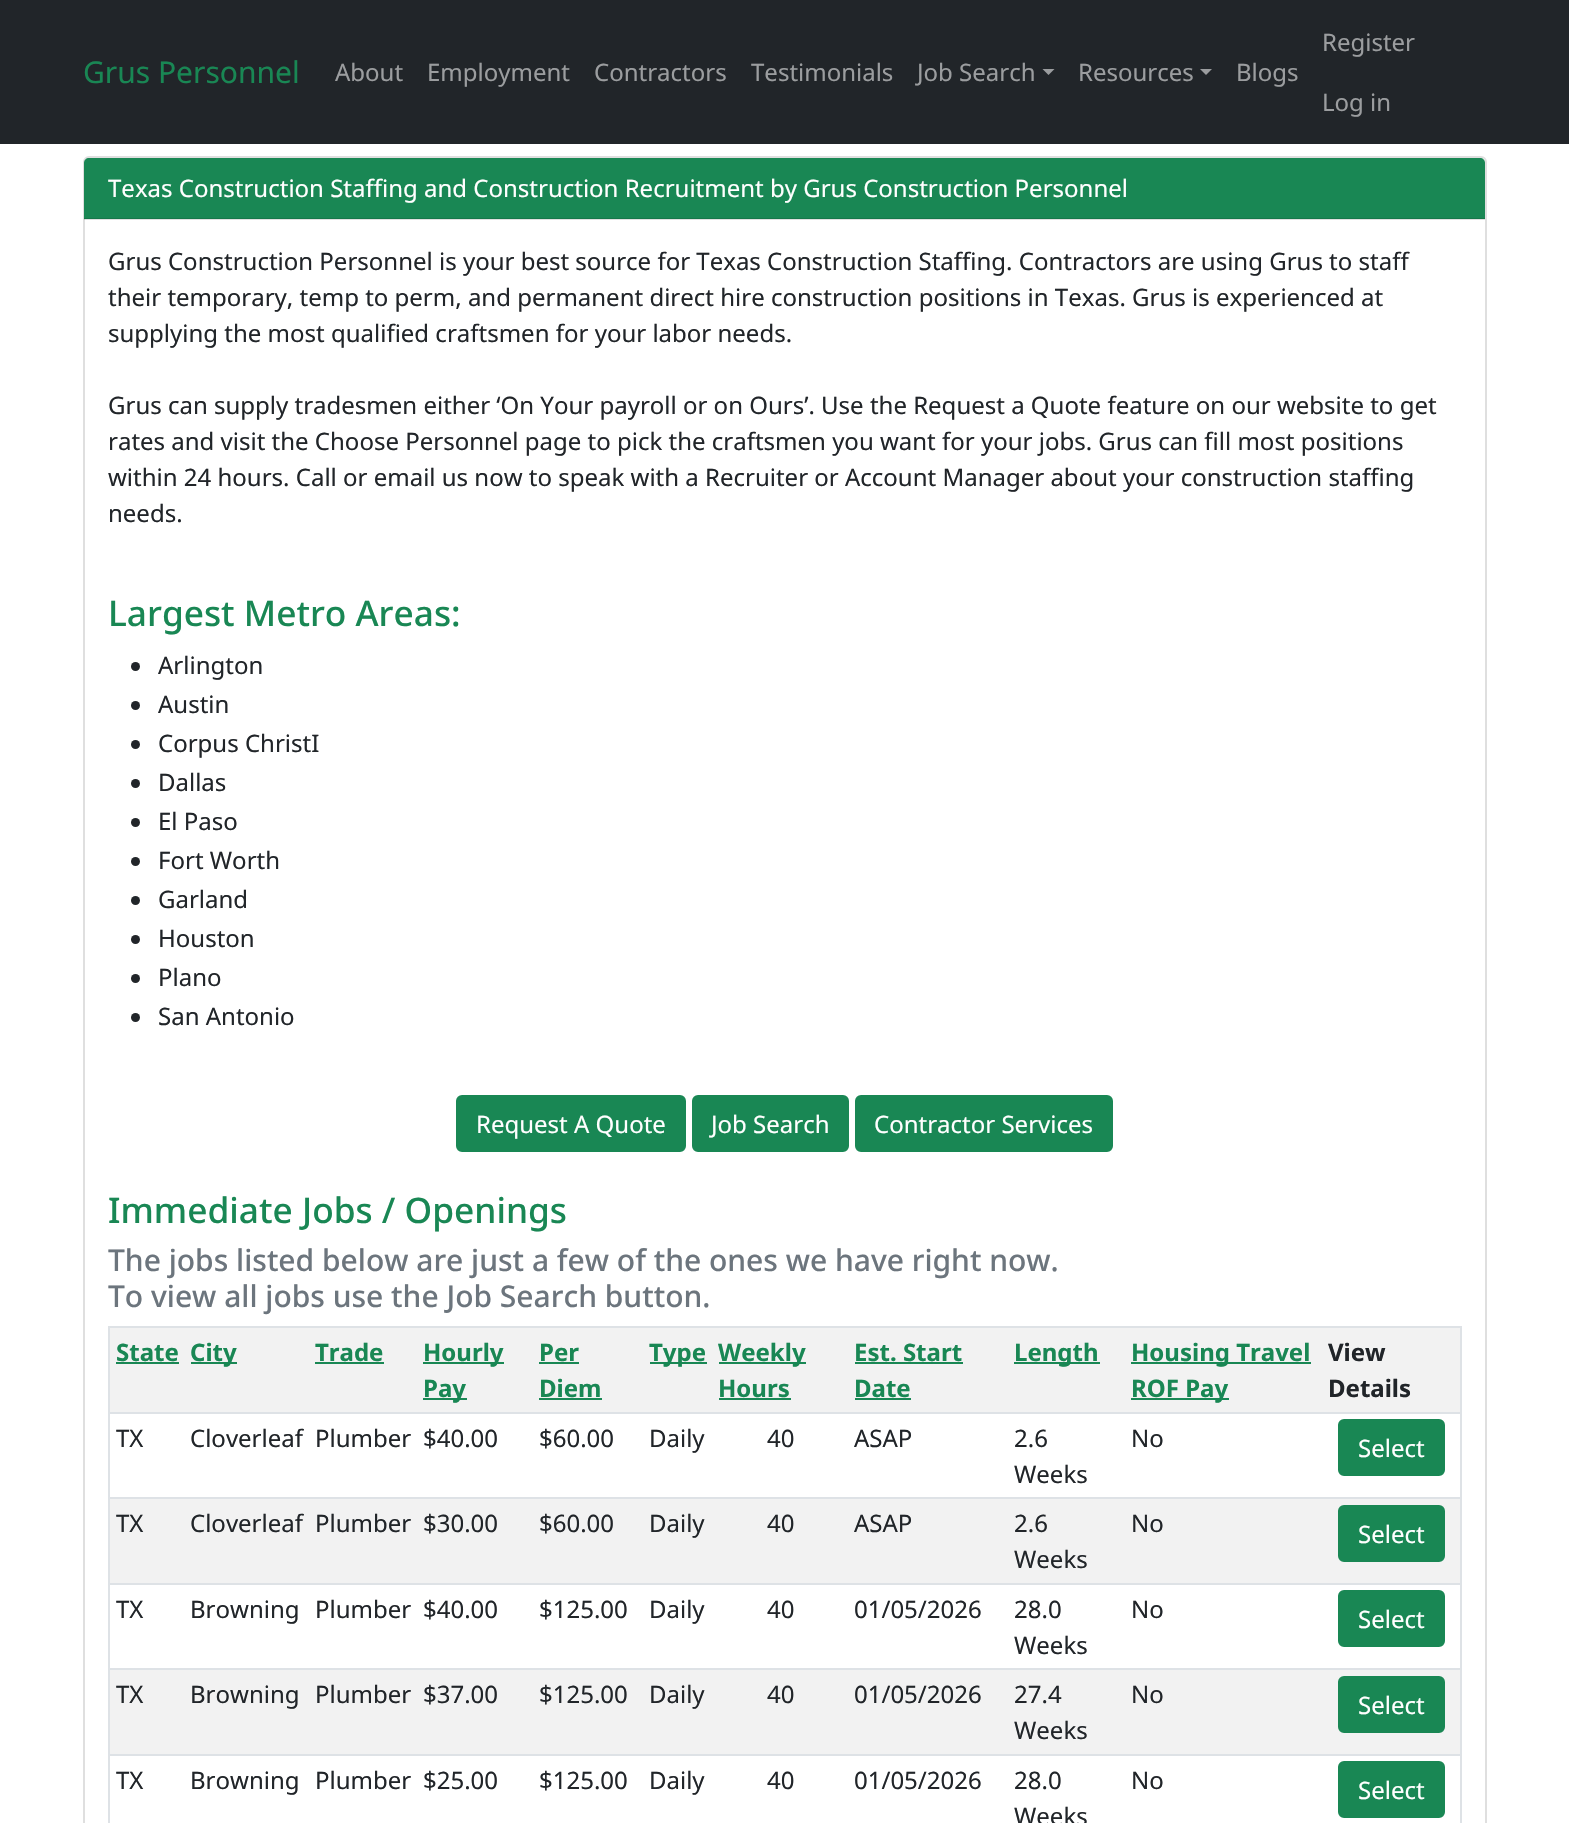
void draw(SkCanvas* canvas) {
  SkPaint paint;
  paint.setAntiAlias(true);
  auto face = [&](const char* family, int weight, float size, bool italic = false) {
    SkFontStyle style(weight, SkFontStyle::kNormal_Width,
      italic ? SkFontStyle::kItalic_Slant : SkFontStyle::kUpright_Slant);
    SkFont result(fontMgr->matchFamilyStyle(family, style), size);
    result.setSubpixel(true);
    return result;
  };
  auto shape = [&](const char* data, bool evenOdd = false) {
    SkPath result = *SkParsePath::FromSVGString(data);
    if (evenOdd) result.setFillType(SkPathFillType::kEvenOdd);
    return result;
  };
  canvas->clear(0xffffffff);
  paint.setColor(0xff212529);
  canvas->drawRect(SkRect::MakeXYWH(0, 0, 1569, 144), paint);
  paint.setColor(0xff9b9d9f);
  canvas->drawPath(shape("M1042.5 69H1054.5L1048.5 75Z"), paint);
  canvas->drawPath(shape("M1200 69H1212L1206 75Z"), paint);
  paint.setStroke(true);
  paint.setStrokeWidth(2);
  paint.setColor(0xffdfdfdf);
  canvas->drawRoundRect(SkRect::MakeXYWH(84, 157, 1402, 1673), 5, 5, paint);
  paint.setStroke(false);
  paint.setColor(0xff198754);
  canvas->drawPath(shape("M89 158H1480C1483 158 1485 160 1485 163V219H84V163C84 160 86 158 89 158Z"), paint);
  paint.setColor(0x1f000000);
  canvas->drawRect(SkRect::MakeXYWH(84, 218, 1401, 2), paint);
  paint.setColor(0xff212529);
  canvas->drawCircle(135.5f, 666.5f, 4.5f, paint);
  canvas->drawCircle(135.5f, 705.5f, 4.5f, paint);
  canvas->drawCircle(135.5f, 744.5f, 4.5f, paint);
  canvas->drawCircle(135.5f, 783.5f, 4.5f, paint);
  canvas->drawCircle(135.5f, 822.5f, 4.5f, paint);
  canvas->drawCircle(135.5f, 861.5f, 4.5f, paint);
  canvas->drawCircle(135.5f, 900.5f, 4.5f, paint);
  canvas->drawCircle(135.5f, 939.5f, 4.5f, paint);
  canvas->drawCircle(135.5f, 978.5f, 4.5f, paint);
  canvas->drawCircle(135.5f, 1017.5f, 4.5f, paint);
  paint.setColor(0xff198754);
  canvas->drawRoundRect(SkRect::MakeXYWH(457, 1096, 228, 55), 5, 5, paint);
  paint.setStroke(true);
  canvas->drawRoundRect(SkRect::MakeXYWH(457, 1096, 228, 55), 5, 5, paint);
  paint.setStroke(false);
  canvas->drawRoundRect(SkRect::MakeXYWH(693, 1096, 155, 55), 5, 5, paint);
  paint.setStroke(true);
  canvas->drawRoundRect(SkRect::MakeXYWH(693, 1096, 155, 55), 5, 5, paint);
  paint.setStroke(false);
  canvas->drawRoundRect(SkRect::MakeXYWH(856, 1096, 256, 55), 5, 5, paint);
  paint.setStroke(true);
  canvas->drawRoundRect(SkRect::MakeXYWH(856, 1096, 256, 55), 5, 5, paint);
  paint.setStroke(false);
  {
    const struct { float x, y, w, h; SkColor color; } items[] = {
      {108, 1326, 1353, 2, 0xffdee2e6},
      {1460, 1326, 2, 497, 0xffdee2e6},
      {108, 1326, 2, 497, 0xffdee2e6},
      {110, 1328, 1350, 84, 0xfff2f2f2},
      {116, 1362, 63, 2, 0xff198754},
      {191, 1362, 46, 2, 0xff198754},
      {315, 1362, 69, 2, 0xff198754},
      {423, 1362, 81, 2, 0xff198754},
      {423, 1398, 44, 2, 0xff198754},
      {539, 1362, 40, 2, 0xff198754},
      {539, 1398, 63, 2, 0xff198754},
      {650, 1362, 57, 2, 0xff198754},
      {719, 1362, 87, 2, 0xff198754},
      {719, 1398, 72, 2, 0xff198754},
      {855, 1362, 108, 2, 0xff198754},
      {855, 1398, 56, 2, 0xff198754},
      {1014, 1362, 86, 2, 0xff198754},
      {1131, 1362, 180, 2, 0xff198754},
      {1131, 1398, 98, 2, 0xff198754},
      {108, 1412, 1353, 2, 0xffdee2e6},
      {108, 1497, 1353, 2, 0xffdee2e6},
    };
    for (auto [x, y, w, h, color] : items) {
      paint.setColor(color);
      canvas->drawRect(SkRect::MakeXYWH(x, y, w, h), paint);
    }
  }
  paint.setColor(0xff198754);
  canvas->drawRoundRect(SkRect::MakeXYWH(1339, 1420, 105, 55), 5, 5, paint);
  paint.setStroke(true);
  canvas->drawRoundRect(SkRect::MakeXYWH(1339, 1420, 105, 55), 5, 5, paint);
  paint.setStroke(false);
  paint.setColor(0xfff2f2f2);
  canvas->drawRect(SkRect::MakeXYWH(110, 1499, 1350, 84), paint);
  paint.setColor(0xffdee2e6);
  canvas->drawRect(SkRect::MakeXYWH(108, 1583, 1353, 2), paint);
  paint.setColor(0xff198754);
  canvas->drawRoundRect(SkRect::MakeXYWH(1339, 1506, 105, 55), 5, 5, paint);
  paint.setStroke(true);
  canvas->drawRoundRect(SkRect::MakeXYWH(1339, 1506, 105, 55), 5, 5, paint);
  paint.setStroke(false);
  paint.setColor(0xffdee2e6);
  canvas->drawRect(SkRect::MakeXYWH(108, 1668, 1353, 2), paint);
  paint.setColor(0xff198754);
  canvas->drawRoundRect(SkRect::MakeXYWH(1339, 1591, 105, 55), 5, 5, paint);
  paint.setStroke(true);
  canvas->drawRoundRect(SkRect::MakeXYWH(1339, 1591, 105, 55), 5, 5, paint);
  paint.setStroke(false);
  paint.setColor(0xfff2f2f2);
  canvas->drawRect(SkRect::MakeXYWH(110, 1670, 1350, 84), paint);
  paint.setColor(0xffdee2e6);
  canvas->drawRect(SkRect::MakeXYWH(108, 1754, 1353, 2), paint);
  paint.setColor(0xff198754);
  canvas->drawRoundRect(SkRect::MakeXYWH(1339, 1677, 105, 55), 5, 5, paint);
  paint.setStroke(true);
  canvas->drawRoundRect(SkRect::MakeXYWH(1339, 1677, 105, 55), 5, 5, paint);
  paint.setStroke(false);
  canvas->drawRoundRect(SkRect::MakeXYWH(1339, 1762, 105, 55), 5, 5, paint);
  paint.setStroke(true);
  canvas->drawRoundRect(SkRect::MakeXYWH(1339, 1762, 105, 55), 5, 5, paint);
  auto f0 = face("Noto Sans", 400, 30);
  paint.setStroke(false);
  canvas->drawString("Grus Personnel", 83, 83, f0, paint);
  auto f1 = face("Noto Sans", 400, 24);
  paint.setColor(0xff9b9d9f);
  {
    const struct { const char* s; float x, y; } items[] = {
      {"About", 335, 81},
      {"Employment", 427, 81},
      {"Contractors", 594, 81},
      {"Testimonials", 751, 81},
      {"Job Search", 917, 81},
      {"Resources", 1078, 81},
      {"Blogs", 1236, 81},
      {"Register", 1322, 51},
      {"Log in", 1322, 111},
    };
    for (auto [s, x, y] : items) {
      canvas->drawString(s, x, y, f1, paint);
    }
  }
  paint.setColor(0xffffffff);
  canvas->drawString("Texas Construction Staffing and Construction Recruitment by Grus Construction Personnel", 108, 197, f1, paint);
  paint.setColor(0xff212529);
  {
    const struct { const char* s; float x, y; } items[] = {
      {"Grus Construction Personnel is your best source for Texas Construction Staffing. Contractors are using Grus to staff", 108, 270},
      {"their temporary, temp to perm, and permanent direct hire construction positions in Texas. Grus is experienced at", 108, 306},
      {"supplying the most qualified craftsmen for your labor needs.", 108, 342},
      {"Grus can supply tradesmen either ‘On Your payroll or on Ours’. Use the Request a Quote feature on our website to get", 108, 414},
      {"rates and visit the Choose Personnel page to pick the craftsmen you want for your jobs. Grus can fill most positions", 108, 450},
      {"within 24 hours. Call or email us now to speak with a Recruiter or Account Manager about your construction staffing", 108, 486},
      {"needs.", 108, 522},
    };
    for (auto [s, x, y] : items) {
      canvas->drawString(s, x, y, f1, paint);
    }
  }
  auto f2 = face("Noto Sans", 500, 35.25f);
  paint.setColor(0xff198754);
  canvas->drawString("Largest Metro Areas:", 108, 626, f2, paint);
  paint.setColor(0xff212529);
  {
    const struct { const char* s; float x, y; } items[] = {
      {"Arlington", 158, 674},
      {"Austin", 158, 713},
      {"Corpus ChristI", 158, 752},
      {"Dallas", 158, 791},
      {"El Paso", 158, 830},
      {"Fort Worth", 158, 869},
      {"Garland", 158, 908},
      {"Houston", 158, 947},
      {"Plano", 158, 986},
      {"San Antonio", 158, 1025},
    };
    for (auto [s, x, y] : items) {
      canvas->drawString(s, x, y, f1, paint);
    }
  }
  paint.setColor(0xffffffff);
  {
    const struct { const char* s; float x, y; } items[] = {
      {"Request A Quote", 476, 1133},
      {"Job Search", 711, 1133},
      {"Contractor Services", 874, 1133},
    };
    for (auto [s, x, y] : items) {
      canvas->drawString(s, x, y, f1, paint);
    }
  }
  paint.setColor(0xff198754);
  canvas->drawString("Immediate Jobs / Openings", 108, 1223, f2, paint);
  auto f3 = face("Noto Sans", 500, 30);
  paint.setColor(0xff6c757d);
  canvas->drawString("The jobs listed below are just a few of the ones we have right now.", 108, 1271, f3, paint);
  canvas->drawString("To view all jobs use the Job Search button.", 108, 1307, f3, paint);
  auto f4 = face("Noto Sans", 700, 24);
  paint.setColor(0xff198754);
  {
    const struct { const char* s; float x, y; } items[] = {
      {"State", 116, 1361},
      {"City", 190, 1361},
      {"Trade", 315, 1361},
      {"Hourly", 423, 1361},
      {"Pay", 423, 1397},
      {"Per", 539, 1361},
      {"Diem", 539, 1397},
      {"Type", 649, 1361},
      {"Weekly", 718, 1361},
      {"Hours", 718, 1397},
      {"Est. Start", 854, 1361},
      {"Date", 854, 1397},
      {"Length", 1014, 1361},
      {"Housing Travel", 1131, 1361},
      {"ROF Pay", 1131, 1397},
    };
    for (auto [s, x, y] : items) {
      canvas->drawString(s, x, y, f4, paint);
    }
  }
  paint.setColor(0xff212529);
  canvas->drawString("View", 1328, 1361, f4, paint);
  canvas->drawString("Details", 1328, 1397, f4, paint);
  {
    const struct { const char* s; float x, y; } items[] = {
      {"TX", 116, 1447},
      {"Cloverleaf", 190, 1447},
      {"Plumber", 315, 1447},
      {"$40.00", 423, 1447},
      {"$60.00", 539, 1447},
      {"Daily", 649, 1447},
      {"40", 767, 1447},
      {"ASAP", 854, 1447},
      {"2.6", 1014, 1447},
      {"Weeks", 1014, 1483},
      {"No", 1131, 1447},
    };
    for (auto [s, x, y] : items) {
      canvas->drawString(s, x, y, f1, paint);
    }
  }
  paint.setColor(0xffffffff);
  canvas->drawString("Select", 1358, 1457, f1, paint);
  paint.setColor(0xff212529);
  {
    const struct { const char* s; float x, y; } items[] = {
      {"TX", 116, 1532},
      {"Cloverleaf", 190, 1532},
      {"Plumber", 315, 1532},
      {"$30.00", 423, 1532},
      {"$60.00", 539, 1532},
      {"Daily", 649, 1532},
      {"40", 767, 1532},
      {"ASAP", 854, 1532},
      {"2.6", 1014, 1532},
      {"Weeks", 1014, 1568},
      {"No", 1131, 1532},
    };
    for (auto [s, x, y] : items) {
      canvas->drawString(s, x, y, f1, paint);
    }
  }
  paint.setColor(0xffffffff);
  canvas->drawString("Select", 1358, 1543, f1, paint);
  paint.setColor(0xff212529);
  {
    const struct { const char* s; float x, y; } items[] = {
      {"TX", 116, 1618},
      {"Browning", 190, 1618},
      {"Plumber", 315, 1618},
      {"$40.00", 423, 1618},
      {"$125.00", 539, 1618},
      {"Daily", 649, 1618},
      {"40", 767, 1618},
      {"01/05/2026", 854, 1618},
      {"28.0", 1014, 1618},
      {"Weeks", 1014, 1654},
      {"No", 1131, 1618},
    };
    for (auto [s, x, y] : items) {
      canvas->drawString(s, x, y, f1, paint);
    }
  }
  paint.setColor(0xffffffff);
  canvas->drawString("Select", 1358, 1628, f1, paint);
  paint.setColor(0xff212529);
  {
    const struct { const char* s; float x, y; } items[] = {
      {"TX", 116, 1703},
      {"Browning", 190, 1703},
      {"Plumber", 315, 1703},
      {"$37.00", 423, 1703},
      {"$125.00", 539, 1703},
      {"Daily", 649, 1703},
      {"40", 767, 1703},
      {"01/05/2026", 854, 1703},
      {"27.4", 1014, 1703},
      {"Weeks", 1014, 1739},
      {"No", 1131, 1703},
    };
    for (auto [s, x, y] : items) {
      canvas->drawString(s, x, y, f1, paint);
    }
  }
  paint.setColor(0xffffffff);
  canvas->drawString("Select", 1358, 1714, f1, paint);
  paint.setColor(0xff212529);
  {
    const struct { const char* s; float x, y; } items[] = {
      {"TX", 116, 1789},
      {"Browning", 190, 1789},
      {"Plumber", 315, 1789},
      {"$25.00", 423, 1789},
      {"$125.00", 539, 1789},
      {"Daily", 649, 1789},
      {"40", 767, 1789},
      {"01/05/2026", 854, 1789},
      {"28.0", 1014, 1789},
      {"Weeks", 1014, 1825},
      {"No", 1131, 1789},
    };
    for (auto [s, x, y] : items) {
      canvas->drawString(s, x, y, f1, paint);
    }
  }
  paint.setColor(0xffffffff);
  canvas->drawString("Select", 1358, 1799, f1, paint);
}
